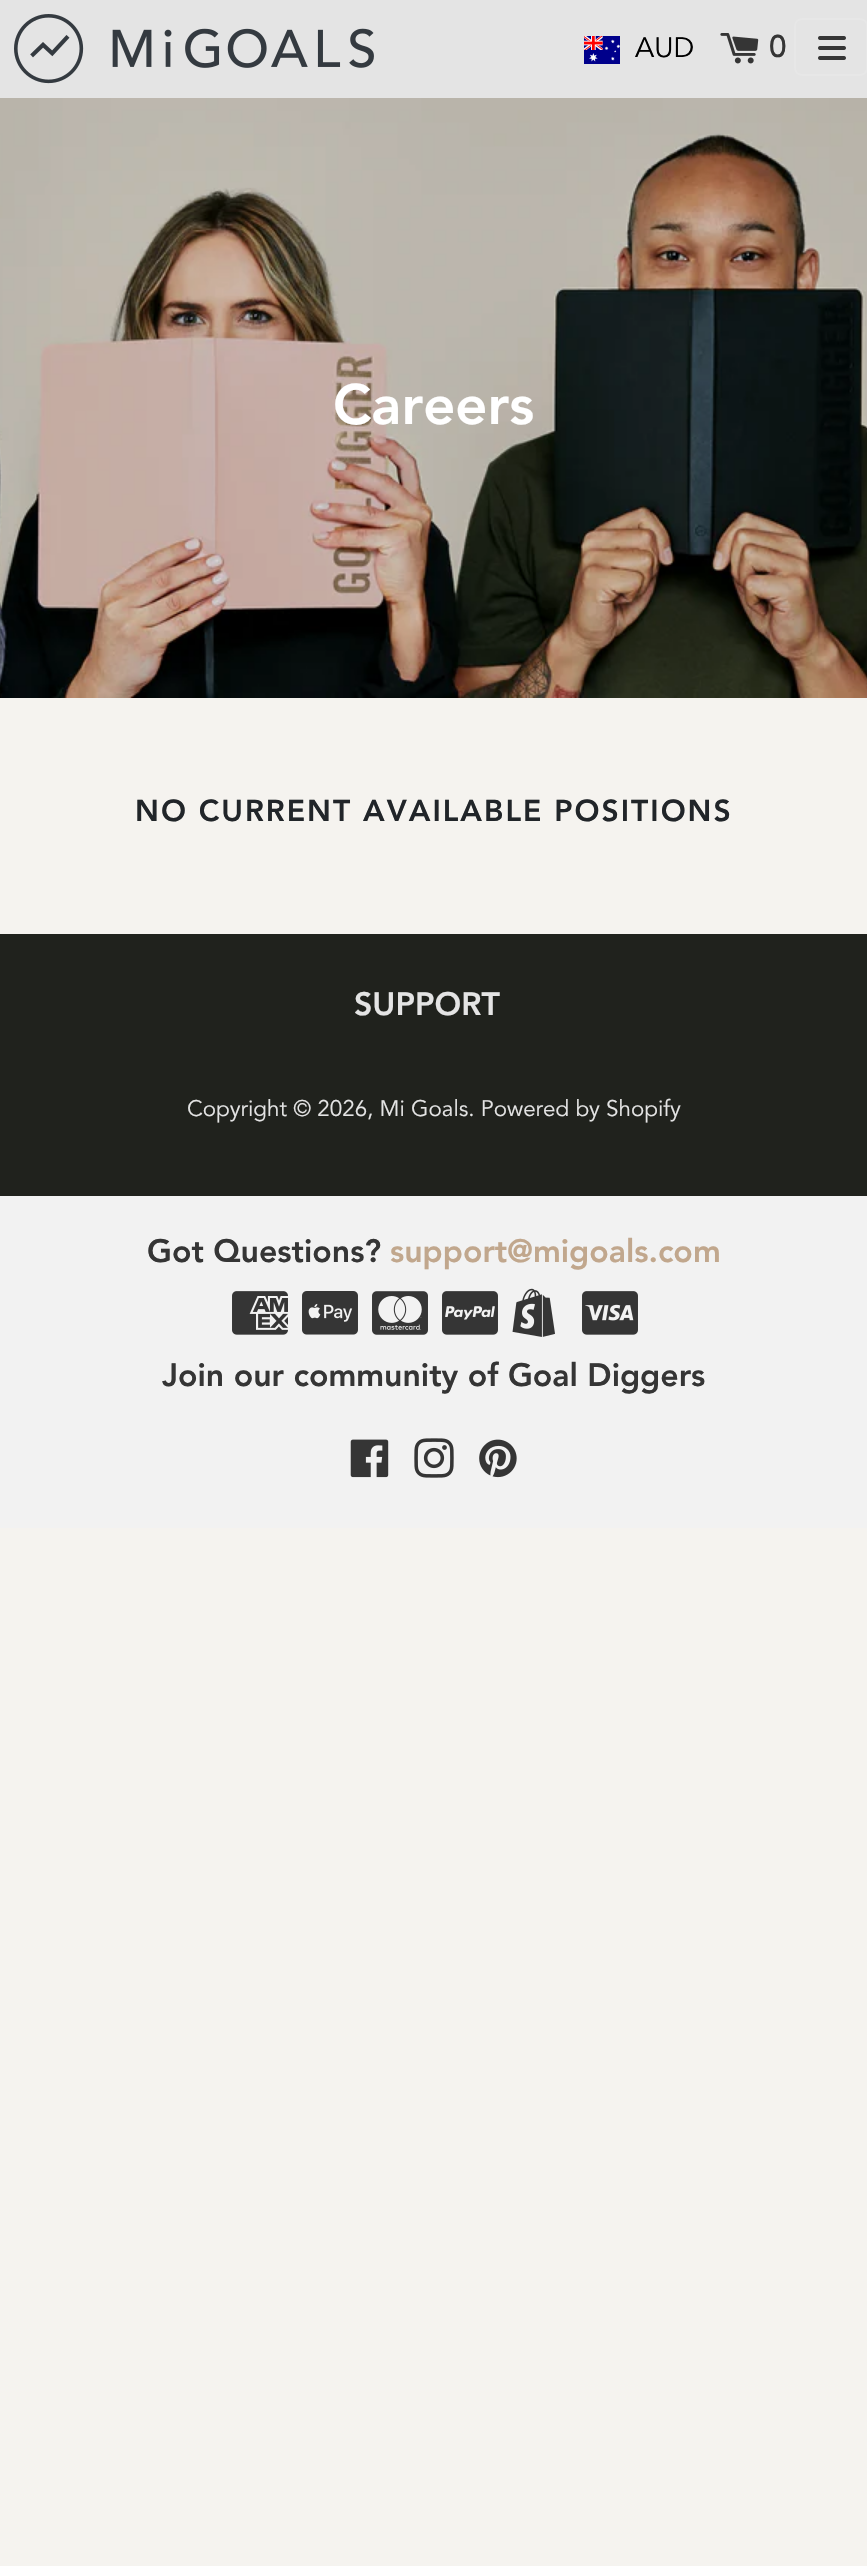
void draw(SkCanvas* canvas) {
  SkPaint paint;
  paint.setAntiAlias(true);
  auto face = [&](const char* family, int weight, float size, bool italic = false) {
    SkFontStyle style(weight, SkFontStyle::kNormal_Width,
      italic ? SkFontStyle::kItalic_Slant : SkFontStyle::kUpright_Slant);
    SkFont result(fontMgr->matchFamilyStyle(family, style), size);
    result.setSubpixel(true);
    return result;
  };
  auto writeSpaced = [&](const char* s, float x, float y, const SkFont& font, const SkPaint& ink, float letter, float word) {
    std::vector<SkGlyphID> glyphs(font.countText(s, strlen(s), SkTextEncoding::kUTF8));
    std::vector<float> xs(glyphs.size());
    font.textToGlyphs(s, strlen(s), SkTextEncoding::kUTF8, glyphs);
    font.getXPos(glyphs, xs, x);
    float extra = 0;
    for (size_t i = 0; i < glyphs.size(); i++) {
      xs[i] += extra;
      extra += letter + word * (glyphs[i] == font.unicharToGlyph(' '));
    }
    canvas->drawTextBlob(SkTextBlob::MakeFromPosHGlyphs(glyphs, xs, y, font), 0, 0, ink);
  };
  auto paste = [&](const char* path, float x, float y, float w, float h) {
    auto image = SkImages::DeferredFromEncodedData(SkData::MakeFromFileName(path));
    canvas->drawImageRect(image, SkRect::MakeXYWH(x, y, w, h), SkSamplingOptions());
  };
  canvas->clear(0xfff5f3ef);
  paint.setColor(0xffe4e4e4);
  canvas->drawRect(SkRect::MakeXYWH(0, 0, 867, 98), paint);
  paste("img/1.png", 14, 14, 360, 70);
  paste("img/2.png", 584, 36, 36, 28);
  paste("img/3.png", 720, 33, 39, 31);
  paint.setStroke(true);
  paint.setStrokeWidth(2);
  paint.setColor(0xffe7e7e7);
  canvas->drawRoundRect(SkRect::MakeXYWH(795, 19, 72, 56), 7, 7, paint);
  paste("img/4.png", 818, 36, 28, 24);
  paste("img/5.png", 0, 98, 867, 600);
  paint.setStroke(false);
  paint.setColor(0xff20221d);
  canvas->drawRect(SkRect::MakeXYWH(0, 934, 867, 262), paint);
  paint.setColor(0xfff2f2f2);
  canvas->drawRect(SkRect::MakeXYWH(0, 1196, 867, 332), paint);
  paste("img/6.png", 232, 1291, 56, 44);
  paste("img/7.png", 302, 1291, 56, 44);
  paste("img/8.png", 372, 1291, 56, 44);
  paste("img/9.png", 442, 1291, 56, 44);
  paste("img/10.png", 512, 1288, 43, 49);
  paste("img/11.png", 582, 1291, 56, 44);
  paste("img/12.png", 350, 1439, 39, 39);
  paste("img/13.png", 414, 1438, 40, 40);
  paste("img/14.png", 479, 1439, 38, 39);
  auto f0 = face("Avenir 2", 400, 28);
  paint.setColor(0xff000000);
  canvas->drawString("AUD", 635, 57, f0, paint);
  auto f1 = face("Avenir", 700, 30);
  paint.setColor(0xff353535);
  canvas->drawString("0", 769, 57, f1, paint);
  auto f2 = face("Avenir", 400, 56);
  paint.setColor(0xffffffff);
  canvas->drawString("Careers", 333, 424, f2, paint);
  auto f3 = face("Avenir", 400, 30);
  paint.setColor(0xff212529);
  writeSpaced("NO CURRENT AVAILABLE POSITIONS", 135, 821, f3, paint, 2, 0);
  auto f4 = face("Avenir", 400, 32);
  paint.setColor(0xffe4e4e4);
  canvas->drawString("SUPPORT", 354, 1015, f4, paint);
  auto f5 = face("Avenir 2", 400, 22.4f);
  canvas->drawString("Copyright © 2026, Mi Goals. Powered by Shopify", 187, 1116, f5, paint);
  paint.setColor(0xff353535);
  canvas->drawString("Got Questions?", 147, 1262, f4, paint);
  paint.setColor(0xffc1a78d);
  canvas->drawString("support@migoals.com", 390, 1262, f4, paint);
  paint.setColor(0xff353535);
  canvas->drawString("Join our community of Goal Diggers", 162, 1386, f4, paint);
}
